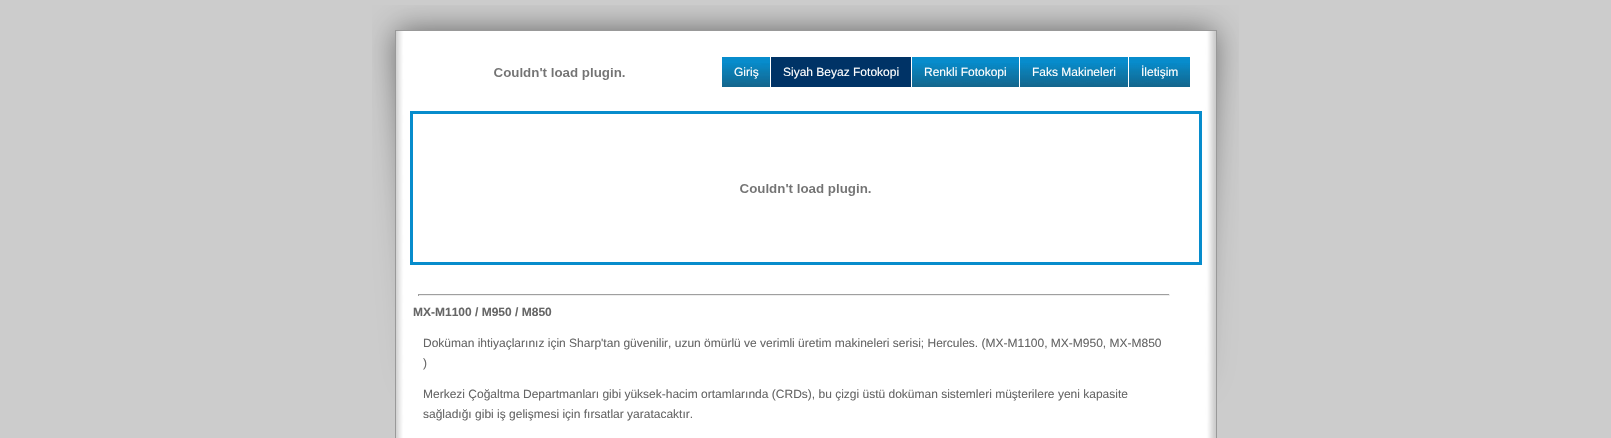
void draw(SkCanvas* canvas) {
  SkPaint paint;
  paint.setAntiAlias(true);
  auto face = [&](const char* family, int weight, float size, bool italic = false) {
    SkFontStyle style(weight, SkFontStyle::kNormal_Width,
      italic ? SkFontStyle::kItalic_Slant : SkFontStyle::kUpright_Slant);
    SkFont result(fontMgr->matchFamilyStyle(family, style), size);
    result.setSubpixel(true);
    return result;
  };
  auto paste = [&](const char* path, float x, float y, float w, float h) {
    auto image = SkImages::DeferredFromEncodedData(SkData::MakeFromFileName(path));
    canvas->drawImageRect(image, SkRect::MakeXYWH(x, y, w, h), SkSamplingOptions());
  };
  canvas->clear(0xffcccccc);
  paste("img/1.png", 372, 5, 867, 399);
  paste("img/2.png", 396, 31, 820, 407);
  paint.setStroke(true);
  paint.setStrokeWidth(1);
  paint.setColor(0xff999999);
  canvas->drawRect(SkRect::MakeXYWH(395.5f, 30.5f, 821, 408), paint);
  paste("img/3.png", 494, 68, 131, 12);
  paint.setStroke(false);
  paint.setColor(0xff078ccc);
  canvas->drawRect(SkRect::MakeXYWH(722, 57, 48, 6), paint);
  paste("img/4.png", 722, 63, 48, 24);
  paint.setColor(0xff003366);
  canvas->drawRect(SkRect::MakeXYWH(771, 57, 140, 30), paint);
  paint.setColor(0xff078ccc);
  canvas->drawRect(SkRect::MakeXYWH(912, 57, 107, 6), paint);
  paste("img/5.png", 912, 63, 107, 24);
  canvas->drawRect(SkRect::MakeXYWH(1020, 57, 108, 6), paint);
  paste("img/6.png", 1020, 63, 108, 24);
  canvas->drawRect(SkRect::MakeXYWH(1129, 57, 61, 6), paint);
  paste("img/7.png", 1129, 63, 61, 24);
  paint.setStroke(true);
  paint.setStrokeWidth(3);
  canvas->drawRect(SkRect::MakeXYWH(411.5f, 112.5f, 789, 151), paint);
  paste("img/3.png", 740, 184, 131, 12);
  paint.setStroke(false);
  {
    const struct { float x, y, w, h; SkColor color; } items[] = {
      {418, 294, 752, 1, 0xff9f9f9f},
      {1169, 294, 1, 2, 0xffeeeeee},
      {418, 295, 752, 1, 0xffeeeeee},
      {418, 294, 1, 2, 0xff9f9f9f},
    };
    for (auto [x, y, w, h, color] : items) {
      paint.setColor(color);
      canvas->drawRect(SkRect::MakeXYWH(x, y, w, h), paint);
    }
  }
  auto f0 = face("Liberation Sans", 400, 12);
  paint.setColor(0xffffffff);
  {
    const struct { const char* s; float x, y; } items[] = {
      {"Giriş", 734, 76},
      {"Siyah Beyaz Fotokopi", 783, 76},
      {"Renkli Fotokopi", 924, 76},
      {"Faks Makineleri", 1032, 76},
      {"İletişim", 1141, 76},
    };
    for (auto [s, x, y] : items) {
      canvas->drawString(s, x, y, f0, paint);
    }
  }
  auto f1 = face("Liberation Sans", 700, 12);
  paint.setColor(0xff666666);
  canvas->drawString("MX-M1100 / M950 / M850", 413, 316, f1, paint);
  {
    const struct { const char* s; float x, y; } items[] = {
      {"Doküman ihtiyaçlarınız için Sharp'tan güvenilir, uzun ömürlü ve verimli üretim makineleri serisi; Hercules. (MX-M1100, MX-M950, MX-M850", 423, 347},
      {")", 423, 367},
      {"Merkezi Çoğaltma Departmanları gibi yüksek-hacim ortamlarında (CRDs), bu çizgi üstü doküman sistemleri müşterilere yeni kapasite", 423, 398},
      {"sağladığı gibi iş gelişmesi için fırsatlar yaratacaktır.", 423, 418},
    };
    for (auto [s, x, y] : items) {
      canvas->drawString(s, x, y, f0, paint);
    }
  }
}
